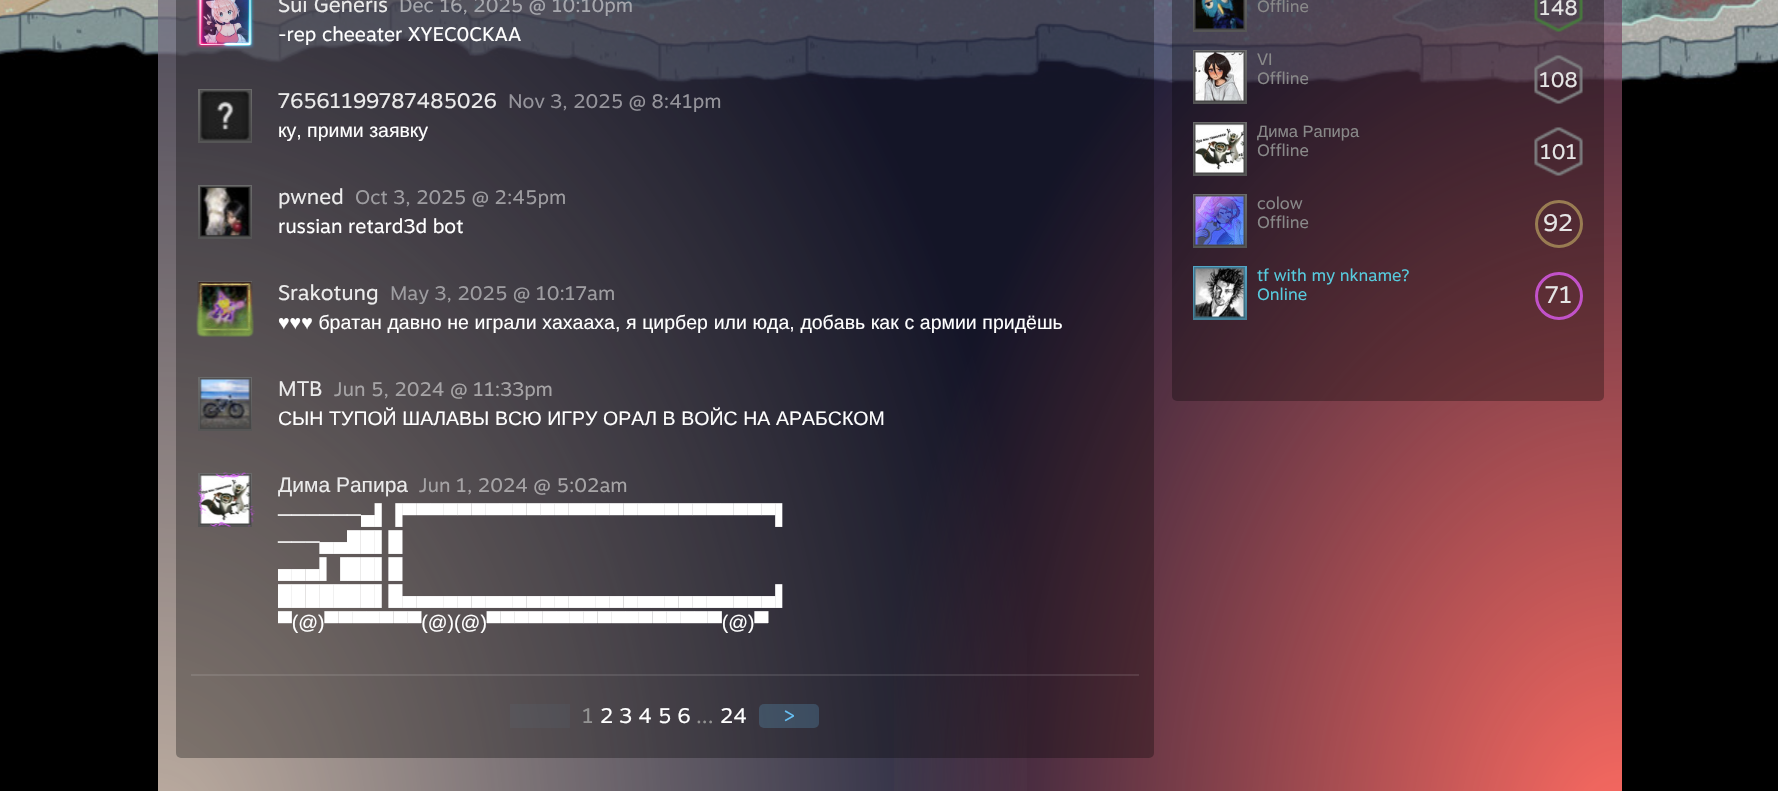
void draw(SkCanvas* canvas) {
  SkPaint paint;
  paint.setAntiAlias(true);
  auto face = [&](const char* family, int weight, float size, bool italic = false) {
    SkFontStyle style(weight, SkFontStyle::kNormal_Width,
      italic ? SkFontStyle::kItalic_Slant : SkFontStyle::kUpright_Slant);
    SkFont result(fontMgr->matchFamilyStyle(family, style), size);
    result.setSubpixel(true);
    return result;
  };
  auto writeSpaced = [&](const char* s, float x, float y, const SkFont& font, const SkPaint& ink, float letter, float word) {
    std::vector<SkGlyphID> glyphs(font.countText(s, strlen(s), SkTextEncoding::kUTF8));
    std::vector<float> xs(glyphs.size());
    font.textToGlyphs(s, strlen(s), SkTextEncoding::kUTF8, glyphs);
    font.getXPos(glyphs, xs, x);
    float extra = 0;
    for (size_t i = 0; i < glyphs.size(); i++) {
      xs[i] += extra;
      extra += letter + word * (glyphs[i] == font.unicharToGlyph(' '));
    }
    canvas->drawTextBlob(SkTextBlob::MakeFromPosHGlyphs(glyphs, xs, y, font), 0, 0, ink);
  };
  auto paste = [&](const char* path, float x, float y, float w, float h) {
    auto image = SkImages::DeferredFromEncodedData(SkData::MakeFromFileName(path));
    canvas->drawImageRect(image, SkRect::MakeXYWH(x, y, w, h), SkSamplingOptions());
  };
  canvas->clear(0xff000000);
  paste("img/1.png", 0, 0, 1778, 84);
  paint.setColor(0x992e315d);
  canvas->drawRect(SkRect::MakeXYWH(158, 0, 1464, 791), paint);
  {
    const SkColor colors[] = {0xffbfafa2, 0x00bfafa2};
    const float stops[] = {0, 0.43f};
    SkMatrix m = SkMatrix::Translate(158, 854).preScale(2070, 2904);
    paint.setShader(SkGradientShader::MakeRadial({0, 0}, 1, colors, stops, 2, SkTileMode::kClamp, 0, &m));
    paint.setAlpha(255);
  }
  canvas->drawRect(SkRect::MakeXYWH(158, 0, 869, 791), paint);
  {
    const SkColor colors[] = {0xffff6b61, 0x00ff6b61};
    const float stops[] = {0, 0.36f};
    SkMatrix m = SkMatrix::Translate(1622, 854).preScale(2070, 2904);
    paint.setShader(SkGradientShader::MakeRadial({0, 0}, 1, colors, stops, 2, SkTileMode::kClamp, 0, &m));
    paint.setAlpha(255);
  }
  canvas->drawRect(SkRect::MakeXYWH(894, 0, 728, 791), paint);
  {
    const SkColor colors[] = {0xffbfafa2, 0x00bfafa2};
    const float stops[] = {0, 0.43f};
    SkMatrix m = SkMatrix::Translate(158, -1200).preScale(2070, 2904);
    paint.setShader(SkGradientShader::MakeRadial({0, 0}, 1, colors, stops, 2, SkTileMode::kClamp, 0, &m));
    paint.setAlpha(255);
  }
  canvas->drawRect(SkRect::MakeXYWH(158, 0, 118, 18), paint);
  paint.setShader(nullptr);
  paint.setColor(0x4d000000);
  canvas->drawRoundRect(SkRect::MakeXYWH(176, -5, 978, 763), 5, 5, paint);
  {
    const SkColor colors[] = {0xff6a6a6a, 0xff555555};
    const float stops[] = {0.05f, 0.95f};
    const SkPoint ends[] = {{225, -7.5f}, {225, 47}};
    paint.setShader(SkGradientShader::MakeLinear(ends, colors, stops, 2, SkTileMode::kClamp));
    paint.setAlpha(255);
  }
  canvas->drawRect(SkRect::MakeXYWH(198, 0, 54, 47), paint);
  paste("img/3.png", 201, 0, 48, 44);
  paste("img/2.png", 195, 0, 60, 49);
  {
    const SkColor colors[] = {0xff6a6a6a, 0xff555555};
    const float stops[] = {0.05f, 0.95f};
    const SkPoint ends[] = {{225, 89}, {225, 143}};
    paint.setShader(SkGradientShader::MakeLinear(ends, colors, stops, 2, SkTileMode::kClamp));
    paint.setAlpha(255);
  }
  canvas->drawRect(SkRect::MakeXYWH(198, 89, 54, 54), paint);
  {
    const SkColor colors[] = {0xff515151, 0xff474747};
    const float stops[] = {0.05f, 0.95f};
    const SkPoint ends[] = {{225, 90}, {225, 141}};
    paint.setShader(SkGradientShader::MakeLinear(ends, colors, stops, 2, SkTileMode::kClamp));
    paint.setAlpha(255);
  }
  canvas->drawRect(SkRect::MakeXYWH(200, 90, 51, 51), paint);
  paste("img/4.png", 200, 91, 50, 49);
  {
    const SkColor colors[] = {0xff6a6a6a, 0xff555555};
    const float stops[] = {0.05f, 0.95f};
    const SkPoint ends[] = {{225, 185}, {225, 239}};
    paint.setShader(SkGradientShader::MakeLinear(ends, colors, stops, 2, SkTileMode::kClamp));
    paint.setAlpha(255);
  }
  canvas->drawRect(SkRect::MakeXYWH(198, 185, 54, 54), paint);
  {
    const SkColor colors[] = {0xff515151, 0xff474747};
    const float stops[] = {0.05f, 0.95f};
    const SkPoint ends[] = {{225, 186}, {225, 237}};
    paint.setShader(SkGradientShader::MakeLinear(ends, colors, stops, 2, SkTileMode::kClamp));
    paint.setAlpha(255);
  }
  canvas->drawRect(SkRect::MakeXYWH(200, 186, 51, 51), paint);
  paste("img/5.png", 200, 187, 50, 49);
  paste("img/6.png", 200, 187, 50, 50);
  {
    const SkColor colors[] = {0xff6a6a6a, 0xff555555};
    const float stops[] = {0.05f, 0.95f};
    const SkPoint ends[] = {{225, 281}, {225, 335}};
    paint.setShader(SkGradientShader::MakeLinear(ends, colors, stops, 2, SkTileMode::kClamp));
    paint.setAlpha(255);
  }
  canvas->drawRect(SkRect::MakeXYWH(198, 281, 54, 54), paint);
  paste("img/8.png", 200, 286, 50, 46);
  paste("img/7.png", 196, 281, 58, 56);
  {
    const SkColor colors[] = {0xff6a6a6a, 0xff555555};
    const float stops[] = {0.05f, 0.95f};
    const SkPoint ends[] = {{225, 377}, {225, 431}};
    paint.setShader(SkGradientShader::MakeLinear(ends, colors, stops, 2, SkTileMode::kClamp));
    paint.setAlpha(255);
  }
  canvas->drawRect(SkRect::MakeXYWH(198, 377, 54, 54), paint);
  {
    const SkColor colors[] = {0xff515151, 0xff474747};
    const float stops[] = {0.05f, 0.95f};
    const SkPoint ends[] = {{225, 378}, {225, 429}};
    paint.setShader(SkGradientShader::MakeLinear(ends, colors, stops, 2, SkTileMode::kClamp));
    paint.setAlpha(255);
  }
  canvas->drawRect(SkRect::MakeXYWH(200, 378, 51, 51), paint);
  paste("img/9.png", 200, 379, 50, 49);
  {
    const SkColor colors[] = {0xff6a6a6a, 0xff555555};
    const float stops[] = {0.05f, 0.95f};
    const SkPoint ends[] = {{225, 473}, {225, 527}};
    paint.setShader(SkGradientShader::MakeLinear(ends, colors, stops, 2, SkTileMode::kClamp));
    paint.setAlpha(255);
  }
  canvas->drawRect(SkRect::MakeXYWH(198, 473, 54, 54), paint);
  {
    const SkColor colors[] = {0xff515151, 0xff474747};
    const float stops[] = {0.05f, 0.95f};
    const SkPoint ends[] = {{225, 474}, {225, 525}};
    paint.setShader(SkGradientShader::MakeLinear(ends, colors, stops, 2, SkTileMode::kClamp));
    paint.setAlpha(255);
  }
  canvas->drawRect(SkRect::MakeXYWH(200, 474, 51, 51), paint);
  paste("img/11.png", 200, 475, 50, 49);
  paste("img/10.png", 196, 471, 59, 56);
  paint.setShader(nullptr);
  paint.setColor(0x1affffff);
  canvas->drawRect(SkRect::MakeXYWH(191, 674, 948, 2), paint);
  paint.setColor(0x0a67c1f5);
  canvas->drawRect(SkRect::MakeXYWH(510, 704, 60, 24), paint);
  paint.setColor(0x3367c1f5);
  canvas->drawRoundRect(SkRect::MakeXYWH(759, 704, 60, 24), 5, 5, paint);
  paint.setColor(0x4d000000);
  canvas->drawRoundRect(SkRect::MakeXYWH(1172, -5, 432, 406), 5, 5, paint);
  {
    const SkColor colors[] = {0xff6a6a6a, 0xff555555};
    const float stops[] = {0.05f, 0.95f};
    const SkPoint ends[] = {{1220, -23}, {1220, 32}};
    paint.setShader(SkGradientShader::MakeLinear(ends, colors, stops, 2, SkTileMode::kClamp));
    paint.setAlpha(255);
  }
  canvas->drawRect(SkRect::MakeXYWH(1193, 0, 54, 32), paint);
  {
    const SkColor colors[] = {0xff515151, 0xff474747};
    const float stops[] = {0.05f, 0.95f};
    const SkPoint ends[] = {{1220, -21}, {1220, 30}};
    paint.setShader(SkGradientShader::MakeLinear(ends, colors, stops, 2, SkTileMode::kClamp));
    paint.setAlpha(255);
  }
  canvas->drawRect(SkRect::MakeXYWH(1194, 0, 51, 30), paint);
  paste("img/12.png", 1195, 0, 49, 29);
  paste("img/13.png", 1534, 0, 49, 32);
  {
    const SkColor colors[] = {0xff6a6a6a, 0xff555555};
    const float stops[] = {0.05f, 0.95f};
    const SkPoint ends[] = {{1220, 50}, {1220, 104}};
    paint.setShader(SkGradientShader::MakeLinear(ends, colors, stops, 2, SkTileMode::kClamp));
    paint.setAlpha(255);
  }
  canvas->drawRect(SkRect::MakeXYWH(1193, 50, 54, 54), paint);
  {
    const SkColor colors[] = {0xff515151, 0xff474747};
    const float stops[] = {0.05f, 0.95f};
    const SkPoint ends[] = {{1220, 51}, {1220, 102}};
    paint.setShader(SkGradientShader::MakeLinear(ends, colors, stops, 2, SkTileMode::kClamp));
    paint.setAlpha(255);
  }
  canvas->drawRect(SkRect::MakeXYWH(1194, 51, 51, 51), paint);
  paste("img/14.png", 1195, 52, 49, 49);
  paste("img/15.png", 1534, 55, 49, 49);
  {
    const SkColor colors[] = {0xff6a6a6a, 0xff555555};
    const float stops[] = {0.05f, 0.95f};
    const SkPoint ends[] = {{1220, 122}, {1220, 176}};
    paint.setShader(SkGradientShader::MakeLinear(ends, colors, stops, 2, SkTileMode::kClamp));
    paint.setAlpha(255);
  }
  canvas->drawRect(SkRect::MakeXYWH(1193, 122, 54, 54), paint);
  {
    const SkColor colors[] = {0xff515151, 0xff474747};
    const float stops[] = {0.05f, 0.95f};
    const SkPoint ends[] = {{1220, 123}, {1220, 174}};
    paint.setShader(SkGradientShader::MakeLinear(ends, colors, stops, 2, SkTileMode::kClamp));
    paint.setAlpha(255);
  }
  canvas->drawRect(SkRect::MakeXYWH(1194, 123, 51, 51), paint);
  paste("img/16.png", 1195, 124, 49, 49);
  paste("img/17.png", 1534, 127, 49, 49);
  {
    const SkColor colors[] = {0xff6a6a6a, 0xff555555};
    const float stops[] = {0.05f, 0.95f};
    const SkPoint ends[] = {{1220, 194}, {1220, 248}};
    paint.setShader(SkGradientShader::MakeLinear(ends, colors, stops, 2, SkTileMode::kClamp));
    paint.setAlpha(255);
  }
  canvas->drawRect(SkRect::MakeXYWH(1193, 194, 54, 54), paint);
  {
    const SkColor colors[] = {0xff515151, 0xff474747};
    const float stops[] = {0.05f, 0.95f};
    const SkPoint ends[] = {{1220, 195}, {1220, 246}};
    paint.setShader(SkGradientShader::MakeLinear(ends, colors, stops, 2, SkTileMode::kClamp));
    paint.setAlpha(255);
  }
  canvas->drawRect(SkRect::MakeXYWH(1194, 195, 51, 51), paint);
  paste("img/18.png", 1195, 196, 49, 49);
  paint.setStroke(true);
  paint.setStrokeWidth(3);
  paint.setShader(nullptr);
  paint.setColor(0xff997c52);
  canvas->drawCircle(1559, 224, 22.5f, paint);
  paint.setStroke(false);
  {
    const SkColor colors[] = {0xff53a4c4, 0xff458097};
    const float stops[] = {0.05f, 0.95f};
    const SkPoint ends[] = {{1220, 266}, {1220, 320}};
    paint.setShader(SkGradientShader::MakeLinear(ends, colors, stops, 2, SkTileMode::kClamp));
    paint.setAlpha(255);
  }
  canvas->drawRect(SkRect::MakeXYWH(1193, 266, 54, 54), paint);
  {
    const SkColor colors[] = {0xff41778f, 0xff3d697b};
    const float stops[] = {0.05f, 0.95f};
    const SkPoint ends[] = {{1220, 267}, {1220, 318}};
    paint.setShader(SkGradientShader::MakeLinear(ends, colors, stops, 2, SkTileMode::kClamp));
    paint.setAlpha(255);
  }
  canvas->drawRect(SkRect::MakeXYWH(1194, 267, 51, 51), paint);
  paste("img/19.png", 1195, 268, 49, 49);
  paint.setStroke(true);
  paint.setShader(nullptr);
  paint.setColor(0xffc252c9);
  canvas->drawCircle(1559, 296, 22.5f, paint);
  auto f0 = face("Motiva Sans", 400, 21);
  paint.setStroke(false);
  paint.setColor(0xffebebeb);
  canvas->drawString("Sui Generis", 278, 12, f0, paint);
  auto f1 = face("Motiva Sans", 400, 19.5f);
  paint.setColor(0xffa6a7ad);
  canvas->drawString("Dec 16, 2025 @ 10:10pm", 399, 12, f1, paint);
  paint.setColor(0xffffffff);
  canvas->drawString("-rep cheeater XYEC0CKAA", 278, 41, f1, paint);
  paint.setColor(0xffebebeb);
  canvas->drawString("76561199787485026", 278, 108, f0, paint);
  paint.setColor(0xff95949b);
  canvas->drawString("Nov 3, 2025 @ 8:41pm", 508, 108, f1, paint);
  auto f2 = face("Liberation Sans", 400, 19.5f);
  paint.setColor(0xffffffff);
  canvas->drawString("ку, прими заявку", 278, 137, f2, paint);
  paint.setColor(0xffebebeb);
  canvas->drawString("pwned", 278, 204, f0, paint);
  paint.setColor(0xff9e9da1);
  canvas->drawString("Oct 3, 2025 @ 2:45pm", 355, 204, f1, paint);
  paint.setColor(0xffffffff);
  canvas->drawString("russian retard3d bot", 278, 233, f1, paint);
  paint.setColor(0xffebebeb);
  canvas->drawString("Srakotung", 278, 300, f0, paint);
  paint.setColor(0xff9e9da1);
  canvas->drawString("May 3, 2025 @ 10:17am", 390, 300, f1, paint);
  paint.setColor(0xffffffff);
  writeSpaced("♥♥♥ братан давно не играли хахааха, я цирбер или юда, добавь как с армии придёшь", 278, 329, f2, paint, 0, 0.25f);
  paint.setColor(0xffebebeb);
  canvas->drawString("MTB", 278, 396, f0, paint);
  paint.setColor(0xffa6a4a6);
  canvas->drawString("Jun 5, 2024 @ 11:33pm", 334, 396, f1, paint);
  paint.setColor(0xffffffff);
  writeSpaced("СЫН ТУПОЙ ШАЛАВЫ ВСЮ ИГРУ ОРАЛ В ВОЙС НА АРАБСКОМ", 278, 425, f2, paint, 0, 0.25f);
  auto f3 = face("Liberation Sans", 400, 21);
  paint.setColor(0xffebebeb);
  canvas->drawString("Дима Рапира", 278, 492, f3, paint);
  paint.setColor(0xffa6a4a6);
  canvas->drawString("Jun 1, 2024 @ 5:02am", 419, 492, f1, paint);
  paint.setColor(0xffffffff);
  canvas->drawString("──────▄▌▐▀▀▀▀▀▀▀▀▀▀▀▀▀▀▀▀▀▀▀▀▀▀▀▀▀▀▀▌", 278, 521, f2, paint);
  canvas->drawString("───▄▄██▌█", 278, 548, f2, paint);
  canvas->save();
  canvas->clipRect(SkRect::MakeXYWH(278, 500, 861, 135));
  {
    const struct { const char* s; float x, y; } items[] = {
      {"▄▄▄▌▐██▌█", 278, 575},
      {"███████▌█▄▄▄▄▄▄▄▄▄▄▄▄▄▄▄▄▄▄▄▄▄▄▄▄▄▄▄▌", 278, 602},
      {"▀(@)▀▀▀▀▀▀▀(@)(@)▀▀▀▀▀▀▀▀▀▀▀▀▀▀▀▀▀(@)▀", 278, 629},
    };
    for (auto [s, x, y] : items) {
      canvas->drawString(s, x, y, f2, paint);
    }
  }
  canvas->restore();
  paint.setColor(0xff939393);
  canvas->drawString("1", 582, 723, f0, paint);
  paint.setColor(0xffffffff);
  canvas->drawString("2 3 4 5 6", 600, 723, f0, paint);
  paint.setColor(0xff939393);
  canvas->drawString("...", 696, 723, f0, paint);
  paint.setColor(0xffffffff);
  canvas->drawString("24", 720, 723, f0, paint);
  paint.setColor(0xff66c0f4);
  canvas->drawString(">", 783, 723, f0, paint);
  auto f4 = face("Motiva Sans", 400, 16.5f);
  paint.setColor(0xff898989);
  canvas->drawString("Offline", 1257, 12, f4, paint);
  paint.setColor(0xffe5e5e5);
  canvas->drawString("148", 1539, 15, f0, paint);
  paint.setColor(0xff898989);
  canvas->drawString("VI", 1257, 65, f4, paint);
  canvas->drawString("Offline", 1257, 84, f4, paint);
  paint.setColor(0xffe5e5e5);
  canvas->drawString("108", 1539, 87, f0, paint);
  auto f5 = face("Liberation Sans", 400, 16.5f);
  paint.setColor(0xff898989);
  canvas->drawString("Дима Рапира", 1257, 137, f5, paint);
  canvas->drawString("Offline", 1257, 156, f4, paint);
  paint.setColor(0xffe5e5e5);
  canvas->drawString("101", 1540, 159, f0, paint);
  paint.setColor(0xff898989);
  canvas->drawString("colow", 1257, 209, f4, paint);
  canvas->drawString("Offline", 1257, 228, f4, paint);
  auto f6 = face("Motiva Sans", 400, 24);
  paint.setColor(0xffe5e5e5);
  canvas->drawString("92", 1543, 231, f6, paint);
  paint.setColor(0xff57cbde);
  canvas->drawString("tf with my nkname?", 1257, 281, f4, paint);
  canvas->drawString("Online", 1257, 300, f4, paint);
  paint.setColor(0xffe5e5e5);
  canvas->drawString("71", 1545, 303, f6, paint);
}
